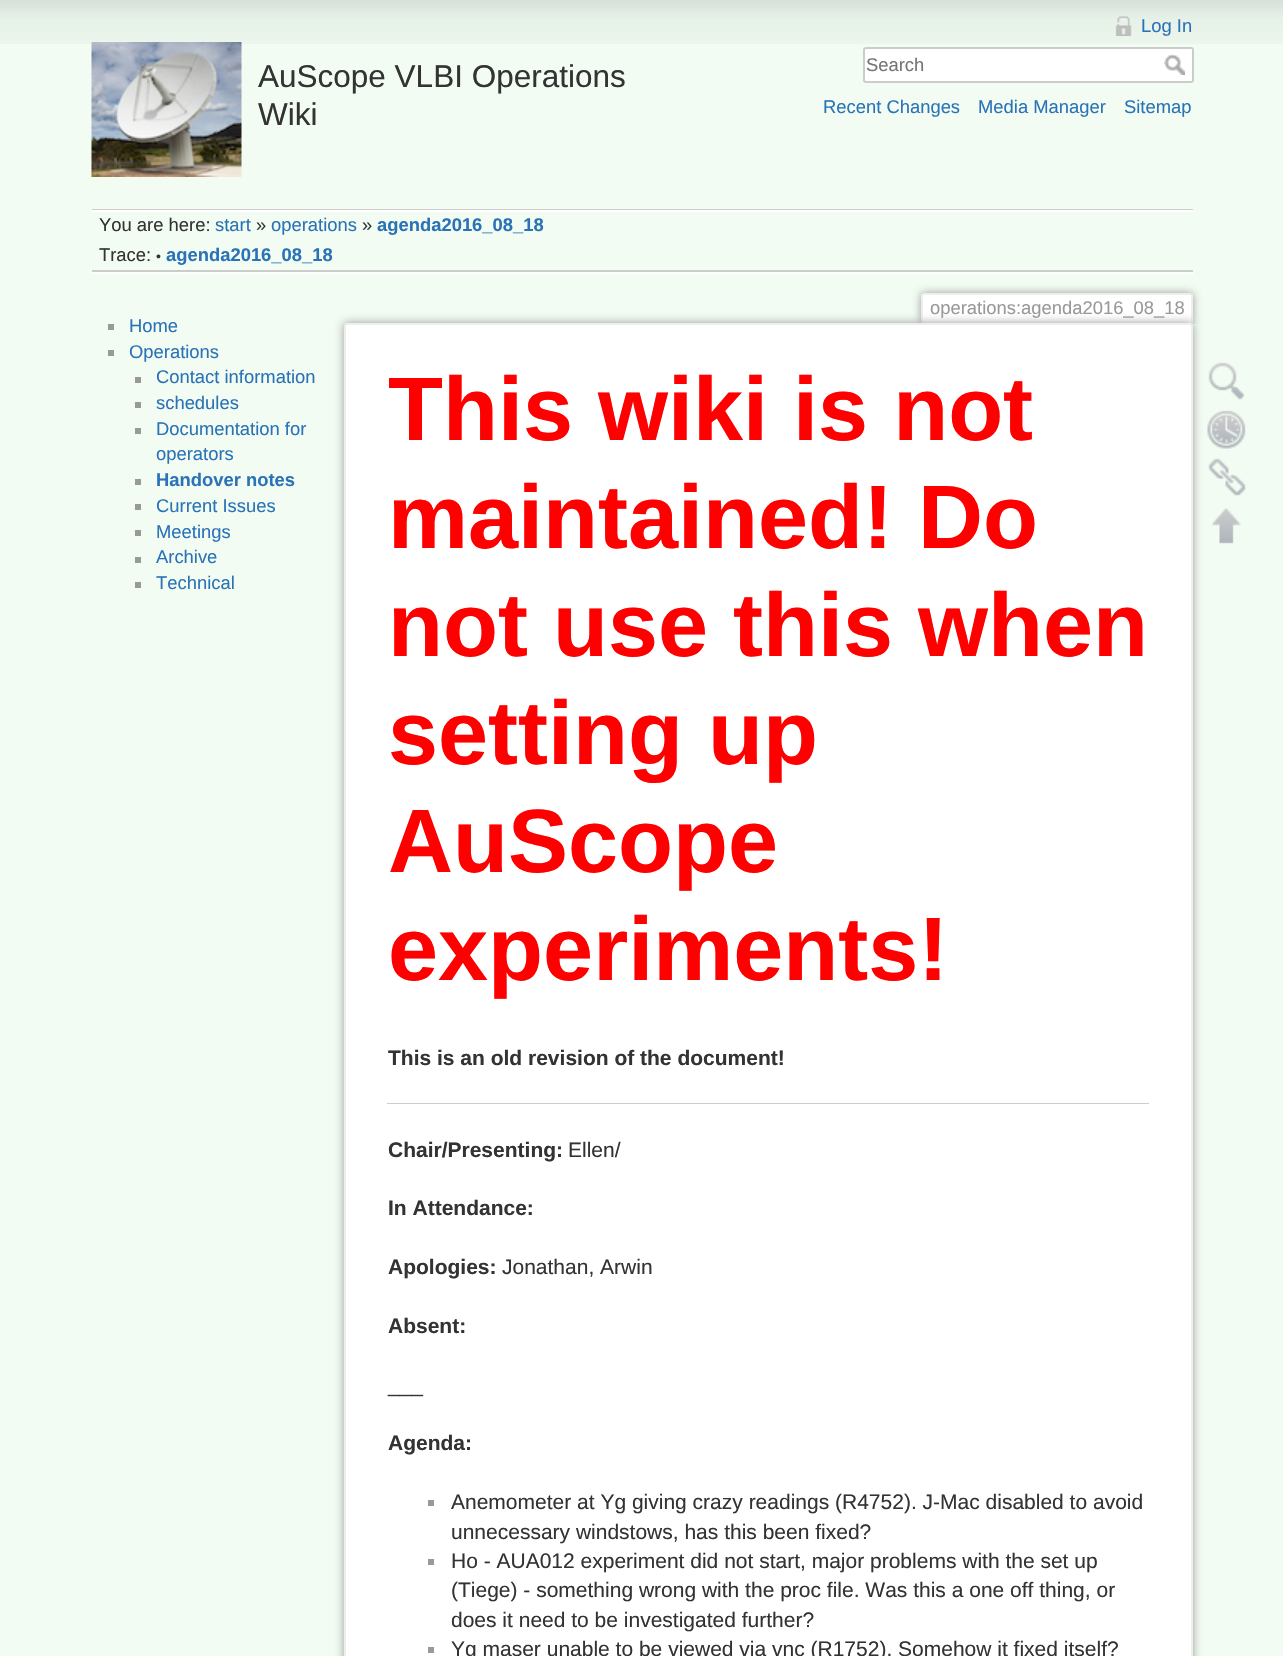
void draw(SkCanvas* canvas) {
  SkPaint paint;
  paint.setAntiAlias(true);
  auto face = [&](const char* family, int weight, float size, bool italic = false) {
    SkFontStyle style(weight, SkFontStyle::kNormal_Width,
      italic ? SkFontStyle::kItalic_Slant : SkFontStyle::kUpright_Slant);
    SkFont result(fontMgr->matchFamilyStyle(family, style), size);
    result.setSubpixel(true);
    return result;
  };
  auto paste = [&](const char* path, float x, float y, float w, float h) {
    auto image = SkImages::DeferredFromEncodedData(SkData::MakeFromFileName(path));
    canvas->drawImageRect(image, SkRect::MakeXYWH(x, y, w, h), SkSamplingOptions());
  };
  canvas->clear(0xfff2fcf2);
  paste("img/1.png", 0, 0, 1283, 44);
  paste("img/2.png", 91, 42, 151, 135);
  paste("img/3.png", 1115, 16, 17, 20);
  paint.setColor(0xffffffff);
  canvas->drawRoundRect(SkRect::MakeXYWH(864, 48, 329, 34), 2, 2, paint);
  paint.setStroke(true);
  paint.setStrokeWidth(2);
  paint.setColor(0xffcccccc);
  canvas->drawRoundRect(SkRect::MakeXYWH(864, 48, 329, 34), 2, 2, paint);
  paste("img/4.png", 1164, 54, 21, 21);
  paint.setStroke(false);
  {
    const struct { float x, y, w, h; SkColor color; } items[] = {
      {92, 209, 1101, 1, 0xffcccccc},
      {92, 272, 1101, 2, 0xffffffff},
      {92, 210, 1101, 2, 0xffffffff},
      {92, 270, 1101, 2, 0xffcccccc},
      {108, 324, 6, 6, 0xff999999},
      {108, 350, 6, 6, 0xff999999},
      {135, 377, 6, 6, 0xff999999},
      {135, 402, 6, 6, 0xff999999},
      {135, 428, 6, 6, 0xff999999},
      {135, 479, 6, 6, 0xff999999},
      {135, 504, 6, 6, 0xff999999},
      {135, 530, 6, 6, 0xff999999},
      {135, 557, 6, 6, 0xff999999},
      {135, 582, 6, 6, 0xff999999},
    };
    for (auto [x, y, w, h, color] : items) {
      paint.setColor(color);
      canvas->drawRect(SkRect::MakeXYWH(x, y, w, h), paint);
    }
  }
  canvas->save();
  canvas->clipRect(SkRect::MakeXYWH(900, 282, 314, 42));
  paint.setMaskFilter(SkMaskFilter::MakeBlur(kNormal_SkBlurStyle, 4.5f));
  canvas->drawRoundRect(SkRect::MakeXYWH(921, 293, 272, 31), 3, 3, paint);
  paint.setMaskFilter(nullptr);
  canvas->restore();
  {
    const struct { float x, y, w, h; SkColor color; } items[] = {
      {923, 295, 268, 29, 0xffffffff},
      {923, 293, 268, 2, 0xffeeeeee},
      {1191, 294, 2, 30, 0xffeeeeee},
      {921, 294, 2, 30, 0xffeeeeee},
    };
    for (auto [x, y, w, h, color] : items) {
      paint.setColor(color);
      canvas->drawRect(SkRect::MakeXYWH(x, y, w, h), paint);
    }
  }
  paint.setColor(0xff999999);
  paint.setMaskFilter(SkMaskFilter::MakeBlur(kNormal_SkBlurStyle, 5));
  canvas->drawRoundRect(SkRect::MakeXYWH(344, 323, 849, 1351), 3, 3, paint);
  paint.setMaskFilter(nullptr);
  paint.setColor(0xffffffff);
  canvas->drawRoundRect(SkRect::MakeXYWH(345, 324, 847, 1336), 2, 2, paint);
  paint.setStroke(true);
  paint.setColor(0xffeeeeee);
  canvas->drawRoundRect(SkRect::MakeXYWH(345, 324, 847, 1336), 2, 2, paint);
  paint.setStroke(false);
  {
    const struct { float x, y, w, h; SkColor color; } items[] = {
      {387, 1103, 762, 1, 0xffcccccc},
      {428, 1500, 6, 6, 0xff999999},
      {428, 1559, 6, 6, 0xff999999},
      {428, 1647, 6, 6, 0xff999999},
    };
    for (auto [x, y, w, h, color] : items) {
      paint.setColor(color);
      canvas->drawRect(SkRect::MakeXYWH(x, y, w, h), paint);
    }
  }
  paste("img/5.png", 1208, 362, 37, 38);
  paste("img/6.png", 1207, 410, 39, 39);
  paste("img/7.png", 1208, 458, 38, 38);
  paste("img/8.png", 1212, 508, 29, 36);
  auto f0 = face("Liberation Sans", 400, 31.5f);
  paint.setColor(0xff333333);
  canvas->drawString("AuScope VLBI Operations", 258, 87, f0, paint);
  canvas->drawString("Wiki", 258, 125, f0, paint);
  auto f1 = face("Liberation Sans", 400, 18.4f);
  paint.setColor(0xff2b73b7);
  canvas->drawString("Log In", 1141, 32, f1, paint);
  paint.setColor(0xff757575);
  canvas->drawString("Search", 866, 71, f1, paint);
  paint.setColor(0xff2b73b7);
  {
    const struct { const char* s; float x, y; } items[] = {
      {"Recent Changes", 823, 113},
      {"Media Manager", 978, 113},
      {"Sitemap", 1124, 113},
    };
    for (auto [s, x, y] : items) {
      canvas->drawString(s, x, y, f1, paint);
    }
  }
  paint.setColor(0xff333333);
  canvas->drawString("You are here:", 99, 231, f1, paint);
  paint.setColor(0xff2b73b7);
  canvas->drawString("start", 215, 231, f1, paint);
  paint.setColor(0xff333333);
  canvas->drawString("»", 256, 231, f1, paint);
  paint.setColor(0xff2b73b7);
  canvas->drawString("operations", 271, 231, f1, paint);
  paint.setColor(0xff333333);
  canvas->drawString("»", 362, 231, f1, paint);
  auto f2 = face("Liberation Sans", 700, 18.4f);
  paint.setColor(0xff2b73b7);
  canvas->drawString("agenda2016_08_18", 377, 231, f2, paint);
  paint.setColor(0xff333333);
  canvas->drawString("Trace:", 99, 261, f1, paint);
  auto f3 = face("Liberation Sans", 400, 14);
  canvas->drawString("•", 156, 261, f3, paint);
  paint.setColor(0xff2b73b7);
  canvas->drawString("agenda2016_08_18", 166, 261, f2, paint);
  {
    const struct { const char* s; float x, y; } items[] = {
      {"Home", 129, 332},
      {"Operations", 129, 358},
      {"Contact information", 156, 383},
      {"schedules", 156, 409},
      {"Documentation for", 156, 435},
      {"operators", 156, 460},
    };
    for (auto [s, x, y] : items) {
      canvas->drawString(s, x, y, f1, paint);
    }
  }
  canvas->drawString("Handover notes", 156, 486, f2, paint);
  {
    const struct { const char* s; float x, y; } items[] = {
      {"Current Issues", 156, 512},
      {"Meetings", 156, 538},
      {"Archive", 156, 563},
      {"Technical", 156, 589},
    };
    for (auto [s, x, y] : items) {
      canvas->drawString(s, x, y, f1, paint);
    }
  }
  paint.setColor(0xff999999);
  canvas->drawString("operations:agenda2016_08_18", 930, 314, f1, paint);
  auto f4 = face("Liberation Sans", 700, 90);
  paint.setColor(0xffff0000);
  {
    const struct { const char* s; float x, y; } items[] = {
      {"This wiki is not", 388, 440},
      {"maintained! Do", 388, 548},
      {"not use this when", 388, 656},
      {"setting up", 388, 764},
      {"AuScope", 388, 872},
      {"experiments!", 388, 980},
    };
    for (auto [s, x, y] : items) {
      canvas->drawString(s, x, y, f4, paint);
    }
  }
  auto f5 = face("Liberation Sans", 700, 21);
  paint.setColor(0xff333333);
  canvas->drawString("This is an old revision of the document!", 388, 1065, f5, paint);
  canvas->drawString("Chair/Presenting:", 388, 1157, f5, paint);
  auto f6 = face("Liberation Sans", 400, 21);
  canvas->drawString("Ellen/", 568, 1157, f6, paint);
  canvas->drawString("In Attendance:", 388, 1215, f5, paint);
  canvas->drawString("Apologies:", 388, 1274, f5, paint);
  canvas->drawString("Jonathan, Arwin", 502, 1274, f6, paint);
  canvas->drawString("Absent:", 388, 1333, f5, paint);
  canvas->drawString("___", 388, 1392, f6, paint);
  canvas->drawString("Agenda:", 388, 1450, f5, paint);
  {
    const struct { const char* s; float x, y; } items[] = {
      {"Anemometer at Yg giving crazy readings (R4752). J-Mac disabled to avoid", 451, 1509},
      {"unnecessary windstows, has this been fixed?", 451, 1539},
      {"Ho - AUA012 experiment did not start, major problems with the set up", 451, 1568},
      {"(Tiege) - something wrong with the proc file. Was this a one off thing, or", 451, 1597},
      {"does it need to be investigated further?", 451, 1627},
      {"Yg maser unable to be viewed via vnc (R1752). Somehow it fixed itself?", 451, 1656},
    };
    for (auto [s, x, y] : items) {
      canvas->drawString(s, x, y, f6, paint);
    }
  }
}
